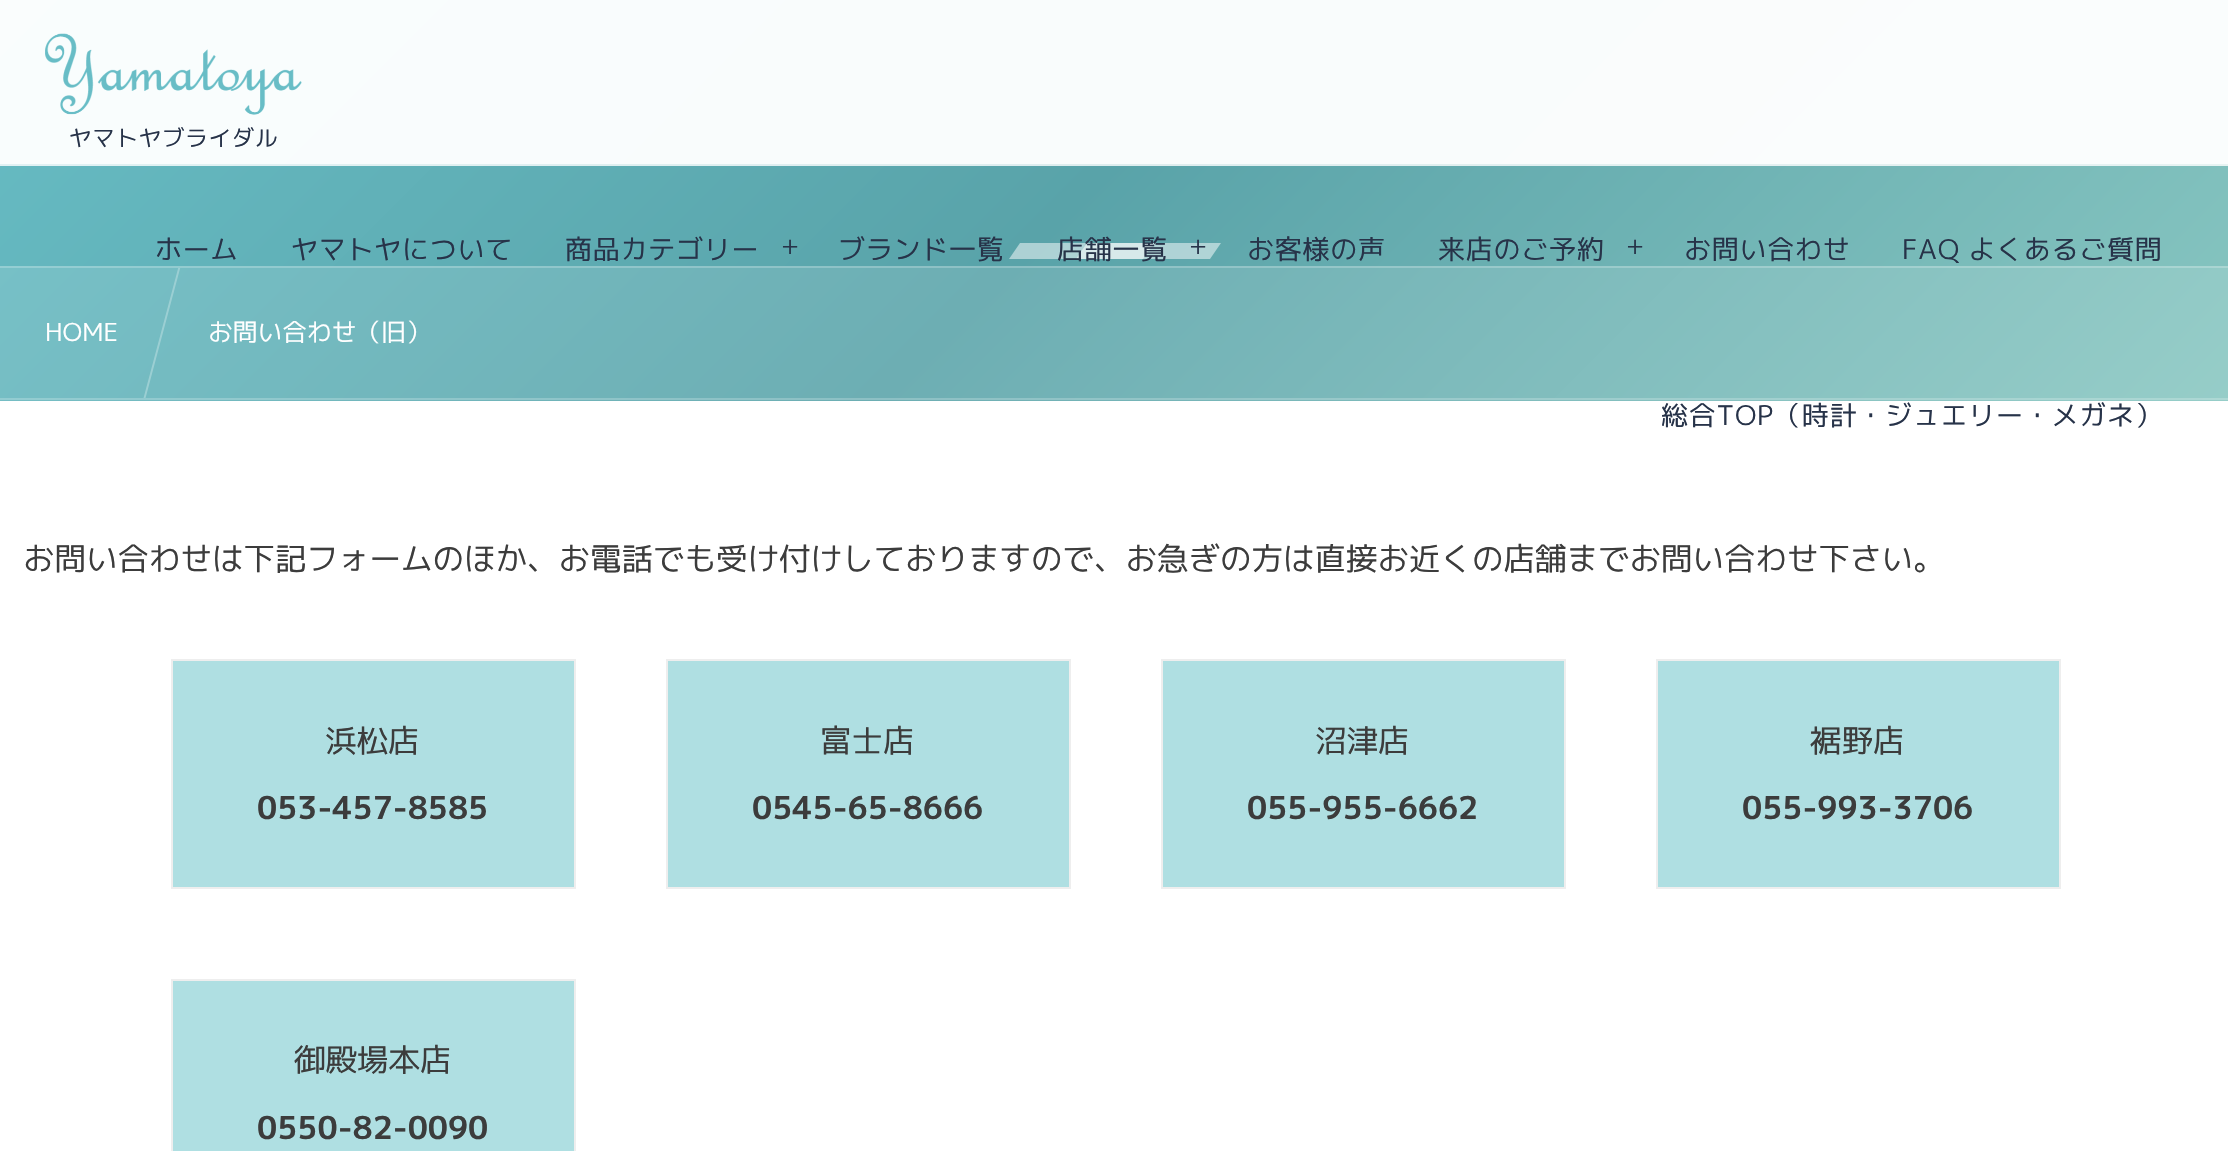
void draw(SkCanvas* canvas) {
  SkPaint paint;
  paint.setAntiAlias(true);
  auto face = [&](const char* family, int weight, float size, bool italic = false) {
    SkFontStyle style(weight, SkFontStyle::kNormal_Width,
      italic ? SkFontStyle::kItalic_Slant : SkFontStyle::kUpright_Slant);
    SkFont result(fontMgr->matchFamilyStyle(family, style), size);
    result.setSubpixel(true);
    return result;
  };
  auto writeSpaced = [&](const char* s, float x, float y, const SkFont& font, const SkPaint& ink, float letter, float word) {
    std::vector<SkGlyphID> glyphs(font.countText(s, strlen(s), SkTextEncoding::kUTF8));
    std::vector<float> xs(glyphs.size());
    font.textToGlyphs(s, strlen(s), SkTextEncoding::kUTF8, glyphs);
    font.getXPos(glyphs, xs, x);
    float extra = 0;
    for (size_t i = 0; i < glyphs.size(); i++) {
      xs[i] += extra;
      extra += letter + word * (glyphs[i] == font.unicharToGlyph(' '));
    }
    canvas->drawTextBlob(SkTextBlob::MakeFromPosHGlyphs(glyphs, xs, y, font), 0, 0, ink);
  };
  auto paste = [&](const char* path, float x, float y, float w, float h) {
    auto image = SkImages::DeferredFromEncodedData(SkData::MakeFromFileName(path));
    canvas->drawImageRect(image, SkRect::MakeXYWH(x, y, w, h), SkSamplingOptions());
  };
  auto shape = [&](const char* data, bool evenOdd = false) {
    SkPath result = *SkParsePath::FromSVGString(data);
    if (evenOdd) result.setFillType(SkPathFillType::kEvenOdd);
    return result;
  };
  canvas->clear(0xffffffff);
  {
    const SkColor colors[] = {0xff68bec6, 0xff59a3a9, 0xff88c6c1};
    const float stops[] = {0, 0.5f, 1};
    const SkPoint ends[] = {{438, -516}, {1792, 838}};
    paint.setShader(SkGradientShader::MakeLinear(ends, colors, stops, 3, SkTileMode::kClamp));
    paint.setAlpha(255);
  }
  canvas->drawRect(SkRect::MakeXYWH(0, 0, 2228, 266), paint);
  paint.setShader(nullptr);
  paint.setColor(0xccffffff);
  canvas->drawRect(SkRect::MakeXYWH(0, 164, 2228, 2), paint);
  paint.setColor(0xf5ffffff);
  canvas->drawRect(SkRect::MakeXYWH(0, 0, 2228, 164), paint);
  paste("img/1.png", 45, 33, 257, 82);
  {
    const SkColor colors[] = {0xff7ac6cd, 0xff6daeb3, 0xff96cdc8};
    const float stops[] = {0, 0.5f, 1};
    const SkPoint ends[] = {{438, -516}, {1792, 838}};
    paint.setShader(SkGradientShader::MakeLinear(ends, colors, stops, 3, SkTileMode::kClamp));
    paint.setAlpha(255);
  }
  canvas->drawRect(SkRect::MakeXYWH(0, 268, 2228, 133), paint);
  {
    const SkColor colors[] = {0xff97d3d8, 0xff8dc0c4, 0xffadd8d4};
    const float stops[] = {0, 0.5f, 1};
    const SkPoint ends[] = {{438, -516}, {1792, 838}};
    paint.setShader(SkGradientShader::MakeLinear(ends, colors, stops, 3, SkTileMode::kClamp));
    paint.setAlpha(255);
  }
  canvas->drawRect(SkRect::MakeXYWH(0, 398, 2228, 2), paint);
  canvas->drawRect(SkRect::MakeXYWH(0, 266, 2228, 2), paint);
  paint.setShader(nullptr);
  paint.setColor(0x80ffffff);
  canvas->drawPath(shape("M1020 243H1154L1143 259H1009Z"), paint);
  canvas->drawPath(shape("M1087 243H1221L1210 259H1076Z"), paint);
  canvas->save();
  canvas->clipRect(SkRect::MakeXYWH(0, 268, 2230, 130));
  paint.setColor(0xff9bcfd3);
  canvas->drawPath(shape("M179 265H181L145 400H143Z"), paint);
  canvas->restore();
  paint.setColor(0xffafdfe2);
  canvas->drawRect(SkRect::MakeXYWH(172, 660, 403, 228), paint);
  paint.setStroke(true);
  paint.setStrokeWidth(2);
  paint.setColor(0xffeeeeee);
  canvas->drawRect(SkRect::MakeXYWH(172, 660, 403, 228), paint);
  paint.setStroke(false);
  paint.setColor(0xffafdfe2);
  canvas->drawRect(SkRect::MakeXYWH(667, 660, 403, 228), paint);
  paint.setStroke(true);
  paint.setColor(0xffeeeeee);
  canvas->drawRect(SkRect::MakeXYWH(667, 660, 403, 228), paint);
  paint.setStroke(false);
  paint.setColor(0xffafdfe2);
  canvas->drawRect(SkRect::MakeXYWH(1162, 660, 403, 228), paint);
  paint.setStroke(true);
  paint.setColor(0xffeeeeee);
  canvas->drawRect(SkRect::MakeXYWH(1162, 660, 403, 228), paint);
  paint.setStroke(false);
  paint.setColor(0xffafdfe2);
  canvas->drawRect(SkRect::MakeXYWH(1657, 660, 403, 228), paint);
  paint.setStroke(true);
  paint.setColor(0xffeeeeee);
  canvas->drawRect(SkRect::MakeXYWH(1657, 660, 403, 228), paint);
  paint.setStroke(false);
  paint.setColor(0xffafdfe2);
  canvas->drawRect(SkRect::MakeXYWH(172, 980, 403, 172), paint);
  paint.setStroke(true);
  paint.setColor(0xffeeeeee);
  canvas->drawRect(SkRect::MakeXYWH(172, 980, 403, 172), paint);
  auto f0 = face("M PLUS 1p", 400, 22.5f);
  paint.setStroke(false);
  paint.setColor(0xff273349);
  writeSpaced("ヤマトヤブライダル", 69, 146, f0, paint, 0.75f, 0);
  auto f1 = face("M PLUS 1p", 400, 27);
  {
    const struct { const char* s; float x, y; } items[] = {
      {"ホーム", 155, 259},
      {"ヤマトヤについて", 291, 259},
      {"商品カテゴリー", 565, 259},
    };
    for (auto [s, x, y] : items) {
      writeSpaced(s, x, y, f1, paint, 0.75f, 0);
    }
  }
  auto f2 = face("M PLUS 1p", 400, 24.75f);
  writeSpaced("+", 781, 254, f2, paint, 0.75f, 0);
  writeSpaced("ブランド一覧", 838, 259, f1, paint, 0.75f, 0);
  writeSpaced("店舗一覧", 1057, 259, f1, paint, 0.75f, 0);
  writeSpaced("+", 1189, 254, f2, paint, 0.75f, 0);
  writeSpaced("お客様の声", 1247, 259, f1, paint, 0.75f, 0);
  writeSpaced("来店のご予約", 1438, 259, f1, paint, 0.75f, 0);
  writeSpaced("+", 1626, 254, f2, paint, 0.75f, 0);
  {
    const struct { const char* s; float x, y; } items[] = {
      {"お問い合わせ", 1684, 259},
      {"FAQ よくあるご質問", 1902, 259},
      {"総合TOP（時計・ジュエリー・メガネ）", 1661, 425},
    };
    for (auto [s, x, y] : items) {
      writeSpaced(s, x, y, f1, paint, 0.75f, 0);
    }
  }
  paint.setColor(0xffffffff);
  canvas->drawString("HOME", 45, 341, f2, paint);
  canvas->drawString("お問い合わせ（旧）", 208, 341, f2, paint);
  auto f3 = face("M PLUS 1p", 400, 31.5f);
  paint.setColor(0xff3c3c3c);
  canvas->drawString("お問い合わせは下記フォームのほか、お電話でも受け付けしておりますので、お急ぎの方は直接お近くの店舗までお問い合わせ下さい。", 23, 570, f3, paint);
  canvas->drawString("浜松店", 325, 752, f3, paint);
  auto f4 = face("M PLUS 1p", 700, 31.5f);
  canvas->drawString("053-457-8585", 257, 819, f4, paint);
  canvas->drawString("富士店", 820, 752, f3, paint);
  canvas->drawString("0545-65-8666", 752, 819, f4, paint);
  canvas->drawString("沼津店", 1315, 752, f3, paint);
  canvas->drawString("055-955-6662", 1247, 819, f4, paint);
  canvas->drawString("裾野店", 1810, 752, f3, paint);
  canvas->drawString("055-993-3706", 1742, 819, f4, paint);
  canvas->drawString("御殿場本店", 294, 1071, f3, paint);
  canvas->drawString("0550-82-0090", 257, 1139, f4, paint);
}
